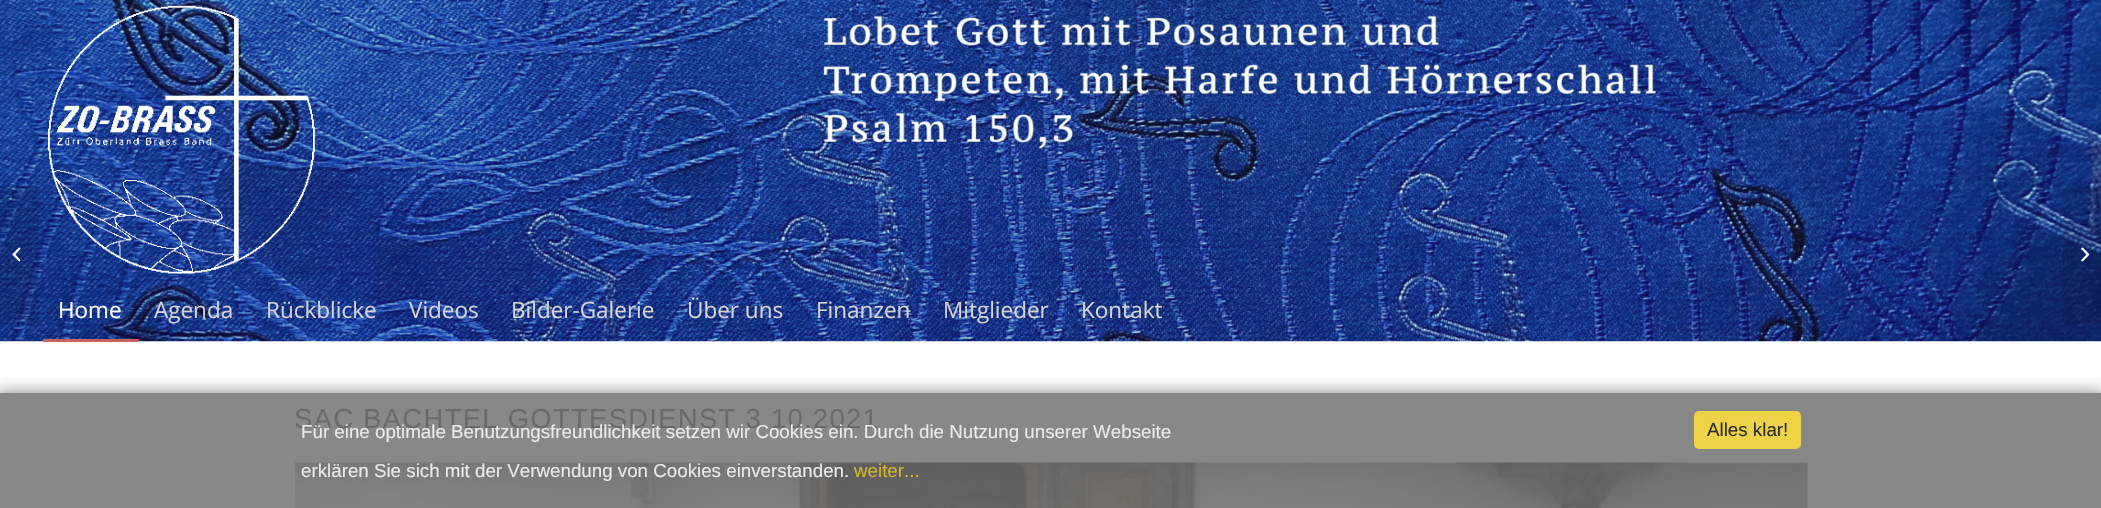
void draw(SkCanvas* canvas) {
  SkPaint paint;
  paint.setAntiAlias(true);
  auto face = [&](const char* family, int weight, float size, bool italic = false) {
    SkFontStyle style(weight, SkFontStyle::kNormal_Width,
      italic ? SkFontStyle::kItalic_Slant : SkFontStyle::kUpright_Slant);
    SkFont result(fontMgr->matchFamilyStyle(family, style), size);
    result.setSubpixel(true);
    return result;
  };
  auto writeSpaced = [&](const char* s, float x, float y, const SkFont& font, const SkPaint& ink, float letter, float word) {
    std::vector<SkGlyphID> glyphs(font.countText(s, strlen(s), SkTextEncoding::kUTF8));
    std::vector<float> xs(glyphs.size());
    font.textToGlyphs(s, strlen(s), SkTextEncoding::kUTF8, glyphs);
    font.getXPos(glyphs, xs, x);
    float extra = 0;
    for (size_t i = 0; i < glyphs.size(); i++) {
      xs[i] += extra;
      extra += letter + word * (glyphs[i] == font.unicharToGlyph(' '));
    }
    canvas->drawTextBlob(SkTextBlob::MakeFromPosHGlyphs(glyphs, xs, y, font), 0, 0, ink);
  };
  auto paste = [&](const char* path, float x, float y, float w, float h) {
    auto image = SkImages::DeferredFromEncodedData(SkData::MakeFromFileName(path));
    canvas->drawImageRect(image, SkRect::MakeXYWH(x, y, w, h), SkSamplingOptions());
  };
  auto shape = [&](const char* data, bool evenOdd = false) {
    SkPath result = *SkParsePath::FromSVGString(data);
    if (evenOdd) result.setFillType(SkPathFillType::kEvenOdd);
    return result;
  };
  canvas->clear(0xffffffff);
  paste("img/2.png", 0, 0, 2101, 342);
  paint.setColor(0x1a000000);
  canvas->drawPath(shape("M0 186H34C37 186 39 188 39 191V319C39 322 37 324 34 324H0Z"), paint);
  paste("img/1.png", 12, 247, 9, 15);
  paste("img/3.png", 48, 5, 267, 269);
  paint.setColor(0xffc76262);
  canvas->drawRect(SkRect::MakeXYWH(43, 339, 96, 3), paint);
  paint.setColor(0x1a000000);
  canvas->drawPath(shape("M2068 186H2101V324H2068C2065 324 2063 322 2063 319V191C2063 188 2065 186 2068 186Z"), paint);
  paste("img/4.png", 2081, 247, 9, 15);
  paint.setColor(0xff888888);
  canvas->drawRect(SkRect::MakeXYWH(0, 393, 2101, 115), paint);
  paste("img/5.png", 295, 462, 1513, 46);
  canvas->save();
  canvas->clipRect(SkRect::MakeXYWH(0, 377, 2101, 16));
  paint.setColor(0xff575757);
  paint.setMaskFilter(SkMaskFilter::MakeBlur(kNormal_SkBlurStyle, 9.5f));
  canvas->drawRect(SkRect::MakeXYWH(-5, 396, 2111, 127), paint);
  paint.setMaskFilter(nullptr);
  canvas->restore();
  paint.setColor(0xffeed247);
  canvas->drawRoundRect(SkRect::MakeXYWH(1694, 411, 107, 38), 5, 5, paint);
  auto f0 = face("Open Sans", 400, 22.5f);
  paint.setColor(0xffffffff);
  canvas->drawString("Home", 58, 318, f0, paint);
  paint.setColor(0xffd4d4d4);
  {
    const struct { const char* s; float x, y; } items[] = {
      {"Agenda", 154, 318},
      {"Rückblicke", 266, 318},
      {"Videos", 409, 318},
      {"Bilder-Galerie", 511, 318},
      {"Über uns", 687, 318},
      {"Finanzen", 816, 318},
      {"Mitglieder", 943, 318},
      {"Kontakt", 1081, 318},
    };
    for (auto [s, x, y] : items) {
      canvas->drawString(s, x, y, f0, paint);
    }
  }
  auto f1 = face("Liberation Sans", 400, 27.5f);
  paint.setColor(0xff6a6a6a);
  writeSpaced("SAC BACHTEL GOTTESDIENST 3.10.2021", 294, 428, f1, paint, 1.25f, 0);
  auto f2 = face("Liberation Sans", 400, 18.75f);
  paint.setColor(0xffeaeaea);
  canvas->drawString("Für eine optimale Benutzungsfreundlichkeit setzen wir Cookies ein. Durch die Nutzung unserer Webseite", 301, 438, f2, paint);
  canvas->drawString("erklären Sie sich mit der Verwendung von Cookies einverstanden.", 301, 477, f2, paint);
  paint.setColor(0xffd2b62b);
  canvas->drawString("weiter...", 854, 477, f2, paint);
  paint.setColor(0xff2c2c2c);
  canvas->drawString("Alles klar!", 1707, 436, f2, paint);
}
